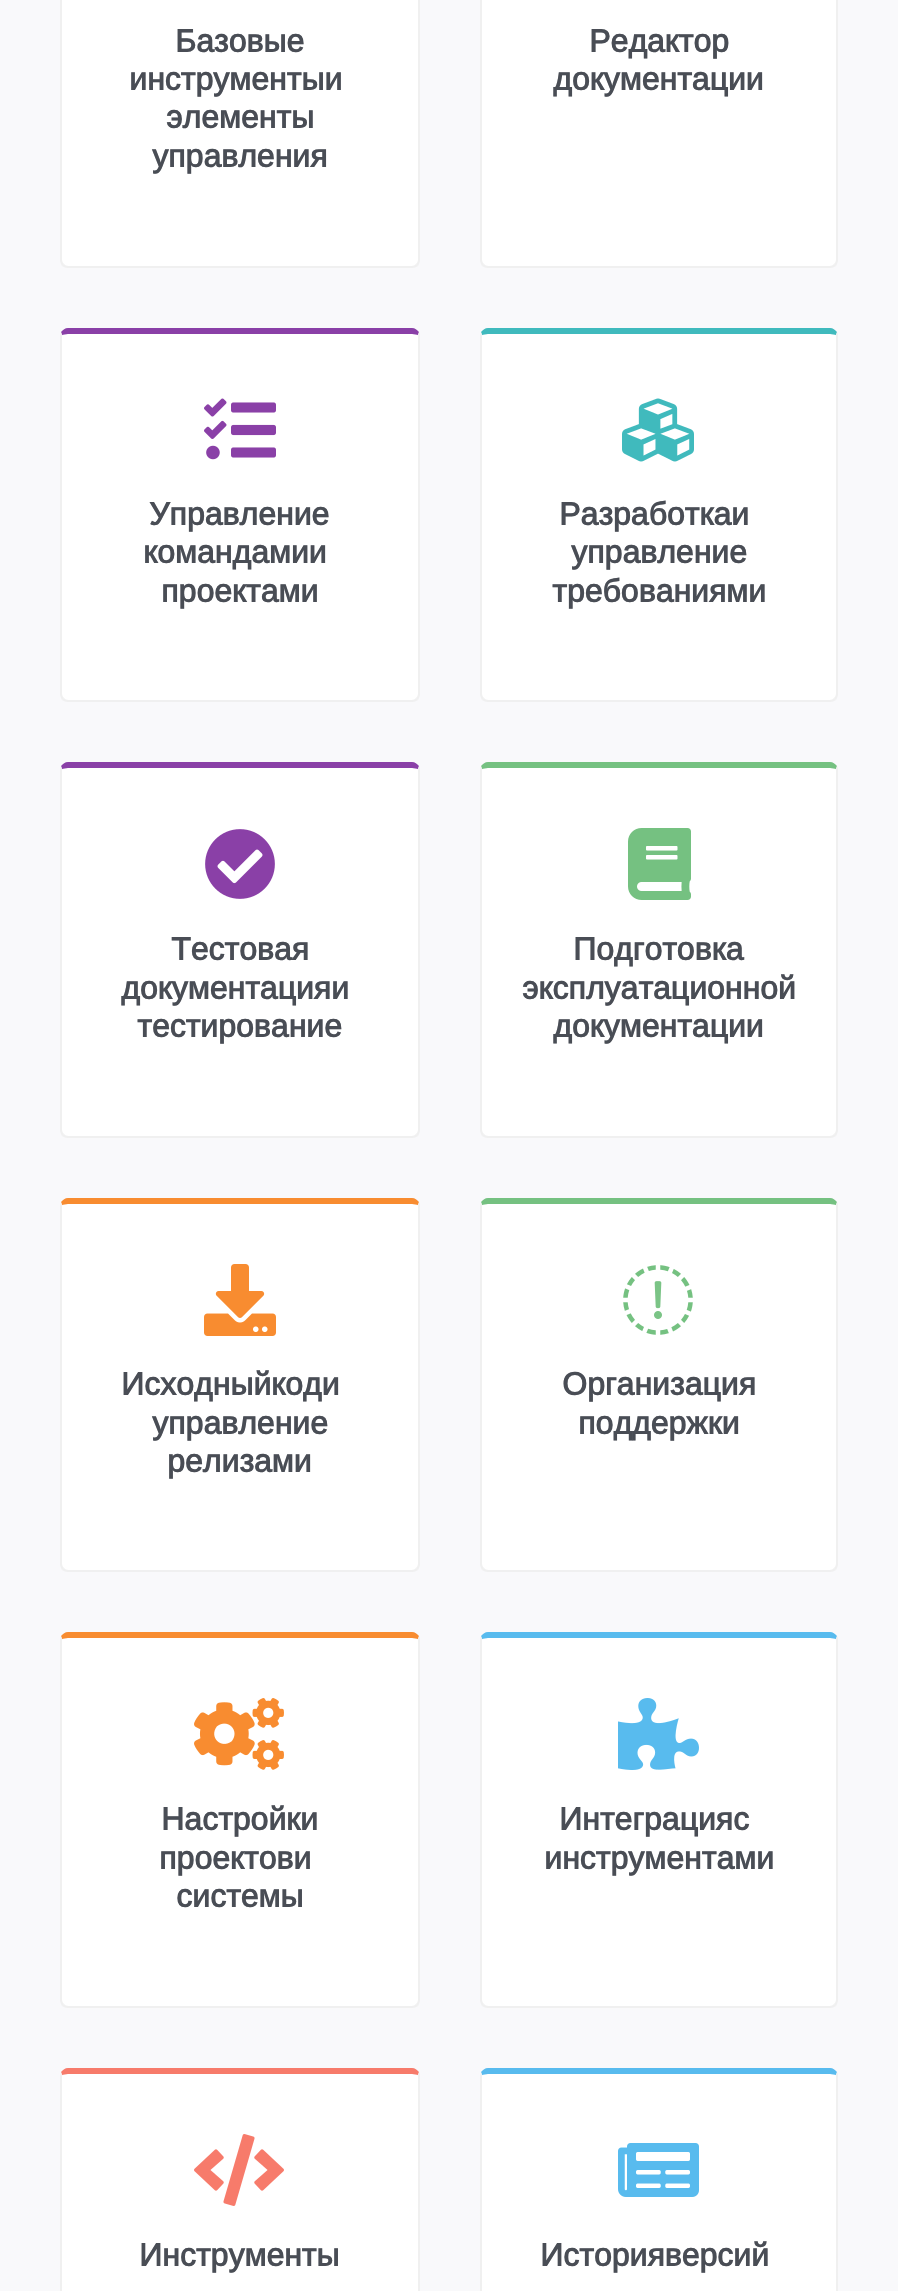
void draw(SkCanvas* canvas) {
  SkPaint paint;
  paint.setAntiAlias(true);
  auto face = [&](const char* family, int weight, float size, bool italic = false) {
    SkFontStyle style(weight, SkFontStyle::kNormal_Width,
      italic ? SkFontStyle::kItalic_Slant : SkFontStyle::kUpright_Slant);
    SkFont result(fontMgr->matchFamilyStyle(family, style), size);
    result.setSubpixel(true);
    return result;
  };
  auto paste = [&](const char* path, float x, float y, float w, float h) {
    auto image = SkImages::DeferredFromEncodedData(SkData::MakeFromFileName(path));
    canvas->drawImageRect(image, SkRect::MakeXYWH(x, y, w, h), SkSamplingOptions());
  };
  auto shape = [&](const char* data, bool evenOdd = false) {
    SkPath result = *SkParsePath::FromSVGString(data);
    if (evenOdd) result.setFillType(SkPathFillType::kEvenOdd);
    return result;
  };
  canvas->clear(0xfff9f9fb);
  paint.setColor(0xffffffff);
  canvas->drawPath(shape("M68-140H412C415-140 418-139 418-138V260C418 263 415 266 412 266H68C65 266 62 263 62 260V-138C62-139 65-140 68-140Z"), paint);
  paint.setColor(0xfff0f0f0);
  canvas->drawPath(shape("M420 260V-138C420-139 420-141 419-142L418-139V-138V260C418 262 417 263 416 264L418 266C419 264 420 262 420 260Z"), paint);
  canvas->drawPath(shape("M68 268H412C414 268 416 267 418 266L416 264C415 265 414 266 412 266H68C66 266 65 265 64 264L62 266C64 267 66 268 68 268Z"), paint);
  canvas->drawPath(shape("M60-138V260C60 262 61 264 62 266L64 264C63 263 62 262 62 260V-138V-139L61-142Z"), paint);
  paint.setColor(0xffffffff);
  canvas->drawPath(shape("M488-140H830C833-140 836-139 836-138V260C836 263 833 266 830 266H488C485 266 482 263 482 260V-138C482-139 485-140 488-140Z"), paint);
  paint.setColor(0xfff0f0f0);
  canvas->drawPath(shape("M838 260V-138C838-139 838-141 837-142L836-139V-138V260C836 262 835 263 834 264L836 266C837 264 838 262 838 260Z"), paint);
  canvas->drawPath(shape("M488 268H830C832 268 834 267 836 266L834 264C833 265 832 266 830 266H488C486 266 485 265 484 264L482 266C484 267 486 268 488 268Z"), paint);
  canvas->drawPath(shape("M480-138V260C480 262 481 264 482 266L484 264C483 263 482 262 482 260V-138V-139L481-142Z"), paint);
  paint.setColor(0xffffffff);
  canvas->drawPath(shape("M68 334H412C415 334 418 335 418 336V694C418 697 415 700 412 700H68C65 700 62 697 62 694V336C62 335 65 334 68 334Z"), paint);
  paint.setColor(0xff8a40a7);
  canvas->drawPath(shape("M68 328C65 328 63 330 61 332L62 335C63 335 66 334 68 334H412C414 334 417 335 418 335L419 332C417 330 415 328 412 328Z"), paint);
  paint.setColor(0xfff0f0f0);
  canvas->drawPath(shape("M420 694V336C420 335 420 333 419 332L418 335V336V694C418 696 417 697 416 698L418 700C419 698 420 696 420 694Z"), paint);
  canvas->drawPath(shape("M68 702H412C414 702 416 701 418 700L416 698C415 699 414 700 412 700H68C66 700 65 699 64 698L62 700C64 701 66 702 68 702Z"), paint);
  canvas->drawPath(shape("M60 336V694C60 696 61 698 62 700L64 698C63 697 62 696 62 694V336V335L61 332Z"), paint);
  paste("img/1.png", 204, 398, 72, 62);
  paint.setColor(0xffffffff);
  canvas->drawPath(shape("M488 334H830C833 334 836 335 836 336V694C836 697 833 700 830 700H488C485 700 482 697 482 694V336C482 335 485 334 488 334Z"), paint);
  paint.setColor(0xff40babd);
  canvas->drawPath(shape("M488 328C485 328 483 330 481 332L482 335C483 335 486 334 488 334H830C832 334 835 335 836 335L837 332C835 330 833 328 830 328Z"), paint);
  paint.setColor(0xfff0f0f0);
  canvas->drawPath(shape("M838 694V336C838 335 838 333 837 332L836 335V336V694C836 696 835 697 834 698L836 700C837 698 838 696 838 694Z"), paint);
  canvas->drawPath(shape("M488 702H830C832 702 834 701 836 700L834 698C833 699 832 700 830 700H488C486 700 485 699 484 698L482 700C484 701 486 702 488 702Z"), paint);
  canvas->drawPath(shape("M480 336V694C480 696 481 698 482 700L484 698C483 697 482 696 482 694V336V335L481 332Z"), paint);
  paste("img/2.png", 622, 398, 72, 64);
  paint.setColor(0xffffffff);
  canvas->drawPath(shape("M68 768H412C415 768 418 769 418 770V1130C418 1133 415 1136 412 1136H68C65 1136 62 1133 62 1130V770C62 769 65 768 68 768Z"), paint);
  paint.setColor(0xff8a40a7);
  canvas->drawPath(shape("M68 762C65 762 63 764 61 766L62 769C63 769 66 768 68 768H412C414 768 417 769 418 769L419 766C417 764 415 762 412 762Z"), paint);
  paint.setColor(0xfff0f0f0);
  canvas->drawPath(shape("M420 1130V770C420 769 420 767 419 766L418 769V770V1130C418 1132 417 1133 416 1134L418 1136C419 1134 420 1132 420 1130Z"), paint);
  canvas->drawPath(shape("M68 1138H412C414 1138 416 1137 418 1136L416 1134C415 1135 414 1136 412 1136H68C66 1136 65 1135 64 1134L62 1136C64 1137 66 1138 68 1138Z"), paint);
  canvas->drawPath(shape("M60 770V1130C60 1132 61 1134 62 1136L64 1134C63 1133 62 1132 62 1130V770V769L61 766Z"), paint);
  paste("img/3.png", 205, 829, 70, 70);
  paint.setColor(0xffffffff);
  canvas->drawPath(shape("M488 768H830C833 768 836 769 836 770V1130C836 1133 833 1136 830 1136H488C485 1136 482 1133 482 1130V770C482 769 485 768 488 768Z"), paint);
  paint.setColor(0xff75c181);
  canvas->drawPath(shape("M488 762C485 762 483 764 481 766L482 769C483 769 486 768 488 768H830C832 768 835 769 836 769L837 766C835 764 833 762 830 762Z"), paint);
  paint.setColor(0xfff0f0f0);
  canvas->drawPath(shape("M838 1130V770C838 769 838 767 837 766L836 769V770V1130C836 1132 835 1133 834 1134L836 1136C837 1134 838 1132 838 1130Z"), paint);
  canvas->drawPath(shape("M488 1138H830C832 1138 834 1137 836 1136L834 1134C833 1135 832 1136 830 1136H488C486 1136 485 1135 484 1134L482 1136C484 1137 486 1138 488 1138Z"), paint);
  canvas->drawPath(shape("M480 770V1130C480 1132 481 1134 482 1136L484 1134C483 1133 482 1132 482 1130V770V769L481 766Z"), paint);
  paste("img/4.png", 628, 828, 63, 72);
  paint.setColor(0xffffffff);
  canvas->drawPath(shape("M68 1204H412C415 1204 418 1205 418 1206V1564C418 1567 415 1570 412 1570H68C65 1570 62 1567 62 1564V1206C62 1205 65 1204 68 1204Z"), paint);
  paint.setColor(0xfff88c30);
  canvas->drawPath(shape("M68 1198C65 1198 63 1200 61 1202L62 1205C63 1205 66 1204 68 1204H412C414 1204 417 1205 418 1205L419 1202C417 1200 415 1198 412 1198Z"), paint);
  paint.setColor(0xfff0f0f0);
  canvas->drawPath(shape("M420 1564V1206C420 1205 420 1203 419 1202L418 1205V1206V1564C418 1566 417 1567 416 1568L418 1570C419 1568 420 1566 420 1564Z"), paint);
  canvas->drawPath(shape("M68 1572H412C414 1572 416 1571 418 1570L416 1568C415 1569 414 1570 412 1570H68C66 1570 65 1569 64 1568L62 1570C64 1571 66 1572 68 1572Z"), paint);
  canvas->drawPath(shape("M60 1206V1564C60 1566 61 1568 62 1570L64 1568C63 1567 62 1566 62 1564V1206V1205L61 1202Z"), paint);
  paste("img/5.png", 204, 1264, 72, 72);
  paint.setColor(0xffffffff);
  canvas->drawPath(shape("M488 1204H830C833 1204 836 1205 836 1206V1564C836 1567 833 1570 830 1570H488C485 1570 482 1567 482 1564V1206C482 1205 485 1204 488 1204Z"), paint);
  paint.setColor(0xff75c181);
  canvas->drawPath(shape("M488 1198C485 1198 483 1200 481 1202L482 1205C483 1205 486 1204 488 1204H830C832 1204 835 1205 836 1205L837 1202C835 1200 833 1198 830 1198Z"), paint);
  paint.setColor(0xfff0f0f0);
  canvas->drawPath(shape("M838 1564V1206C838 1205 838 1203 837 1202L836 1205V1206V1564C836 1566 835 1567 834 1568L836 1570C837 1568 838 1566 838 1564Z"), paint);
  canvas->drawPath(shape("M488 1572H830C832 1572 834 1571 836 1570L834 1568C833 1569 832 1570 830 1570H488C486 1570 485 1569 484 1568L482 1570C484 1571 486 1572 488 1572Z"), paint);
  canvas->drawPath(shape("M480 1206V1564C480 1566 481 1568 482 1570L484 1568C483 1567 482 1566 482 1564V1206V1205L481 1202Z"), paint);
  paste("img/6.png", 623, 1265, 70, 70);
  paint.setColor(0xffffffff);
  canvas->drawPath(shape("M68 1638H412C415 1638 418 1639 418 1640V2000C418 2003 415 2006 412 2006H68C65 2006 62 2003 62 2000V1640C62 1639 65 1638 68 1638Z"), paint);
  paint.setColor(0xfff88c30);
  canvas->drawPath(shape("M68 1632C65 1632 63 1634 61 1636L62 1639C63 1639 66 1638 68 1638H412C414 1638 417 1639 418 1639L419 1636C417 1634 415 1632 412 1632Z"), paint);
  paint.setColor(0xfff0f0f0);
  canvas->drawPath(shape("M420 2000V1640C420 1639 420 1637 419 1636L418 1639V1640V2000C418 2002 417 2003 416 2004L418 2006C419 2004 420 2002 420 2000Z"), paint);
  canvas->drawPath(shape("M68 2008H412C414 2008 416 2007 418 2006L416 2004C415 2005 414 2006 412 2006H68C66 2006 65 2005 64 2004L62 2006C64 2007 66 2008 68 2008Z"), paint);
  canvas->drawPath(shape("M60 1640V2000C60 2002 61 2004 62 2006L64 2004C63 2003 62 2002 62 2000V1640V1639L61 1636Z"), paint);
  paste("img/7.png", 194, 1698, 90, 72);
  paint.setColor(0xffffffff);
  canvas->drawPath(shape("M488 1638H830C833 1638 836 1639 836 1640V2000C836 2003 833 2006 830 2006H488C485 2006 482 2003 482 2000V1640C482 1639 485 1638 488 1638Z"), paint);
  paint.setColor(0xff58bbee);
  canvas->drawPath(shape("M488 1632C485 1632 483 1634 481 1636L482 1639C483 1639 486 1638 488 1638H830C832 1638 835 1639 836 1639L837 1636C835 1634 833 1632 830 1632Z"), paint);
  paint.setColor(0xfff0f0f0);
  canvas->drawPath(shape("M838 2000V1640C838 1639 838 1637 837 1636L836 1639V1640V2000C836 2002 835 2003 834 2004L836 2006C837 2004 838 2002 838 2000Z"), paint);
  canvas->drawPath(shape("M488 2008H830C832 2008 834 2007 836 2006L834 2004C833 2005 832 2006 830 2006H488C486 2006 485 2005 484 2004L482 2006C484 2007 486 2008 488 2008Z"), paint);
  canvas->drawPath(shape("M480 1640V2000C480 2002 481 2004 482 2006L484 2004C483 2003 482 2002 482 2000V1640V1639L481 1636Z"), paint);
  paste("img/8.png", 618, 1698, 81, 72);
  paint.setColor(0xffffffff);
  canvas->drawPath(shape("M68 2074H412C415 2074 418 2075 418 2076V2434C418 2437 415 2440 412 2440H68C65 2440 62 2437 62 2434V2076C62 2075 65 2074 68 2074Z"), paint);
  paint.setColor(0xfff77b6b);
  canvas->drawPath(shape("M68 2068C65 2068 63 2070 61 2072L62 2075C63 2075 66 2074 68 2074H412C414 2074 417 2075 418 2075L419 2072C417 2070 415 2068 412 2068Z"), paint);
  paint.setColor(0xfff0f0f0);
  canvas->drawPath(shape("M420 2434V2076C420 2075 420 2073 419 2072L418 2075V2076V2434C418 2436 417 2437 416 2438L418 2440C419 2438 420 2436 420 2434Z"), paint);
  canvas->drawPath(shape("M60 2076V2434C60 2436 61 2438 62 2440L64 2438C63 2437 62 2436 62 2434V2076V2075L61 2072Z"), paint);
  paste("img/9.png", 194, 2134, 90, 72);
  paint.setColor(0xffffffff);
  canvas->drawPath(shape("M488 2074H830C833 2074 836 2075 836 2076V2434C836 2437 833 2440 830 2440H488C485 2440 482 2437 482 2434V2076C482 2075 485 2074 488 2074Z"), paint);
  paint.setColor(0xff58bbee);
  canvas->drawPath(shape("M488 2068C485 2068 483 2070 481 2072L482 2075C483 2075 486 2074 488 2074H830C832 2074 835 2075 836 2075L837 2072C835 2070 833 2068 830 2068Z"), paint);
  paint.setColor(0xfff0f0f0);
  canvas->drawPath(shape("M838 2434V2076C838 2075 838 2073 837 2072L836 2075V2076V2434C836 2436 835 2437 834 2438L836 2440C837 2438 838 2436 838 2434Z"), paint);
  canvas->drawPath(shape("M480 2076V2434C480 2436 481 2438 482 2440L484 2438C483 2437 482 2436 482 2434V2076V2075L481 2072Z"), paint);
  paste("img/10.png", 618, 2143, 81, 54);
  auto f0 = face("Arimo", 700, 32);
  paint.setColor(0xff494d55);
  {
    const struct { const char* s; float x, y; } items[] = {
      {"Базовые", 175, 52},
      {"инструменты и", 129, 90},
      {"элементы", 166, 128},
      {"управления", 152, 167},
      {"Редактор", 589, 52},
      {"документации", 553, 90},
      {"Управление", 149, 525},
      {"командами и", 143, 563},
      {"проектами", 161, 602},
      {"Разработка и", 559, 525},
      {"управление", 571, 563},
      {"требованиями", 552, 602},
      {"Тестовая", 171, 960},
      {"документация и", 121, 999},
      {"тестирование", 137, 1037},
      {"Подготовка", 573, 960},
      {"эксплуатационной", 522, 999},
      {"документации", 553, 1037},
      {"Исходный код и", 121, 1395},
      {"управление", 152, 1434},
      {"релизами", 167, 1472},
      {"Организация", 562, 1395},
      {"поддержки", 578, 1434},
      {"Настройки", 161, 1830},
      {"проектов и", 159, 1869},
      {"системы", 176, 1907},
      {"Интеграция с", 559, 1830},
      {"инструментами", 544, 1869},
      {"Инструменты", 139, 2266},
      {"История версий", 540, 2266},
    };
    for (auto [s, x, y] : items) {
      canvas->drawString(s, x, y, f0, paint);
    }
  }
}
